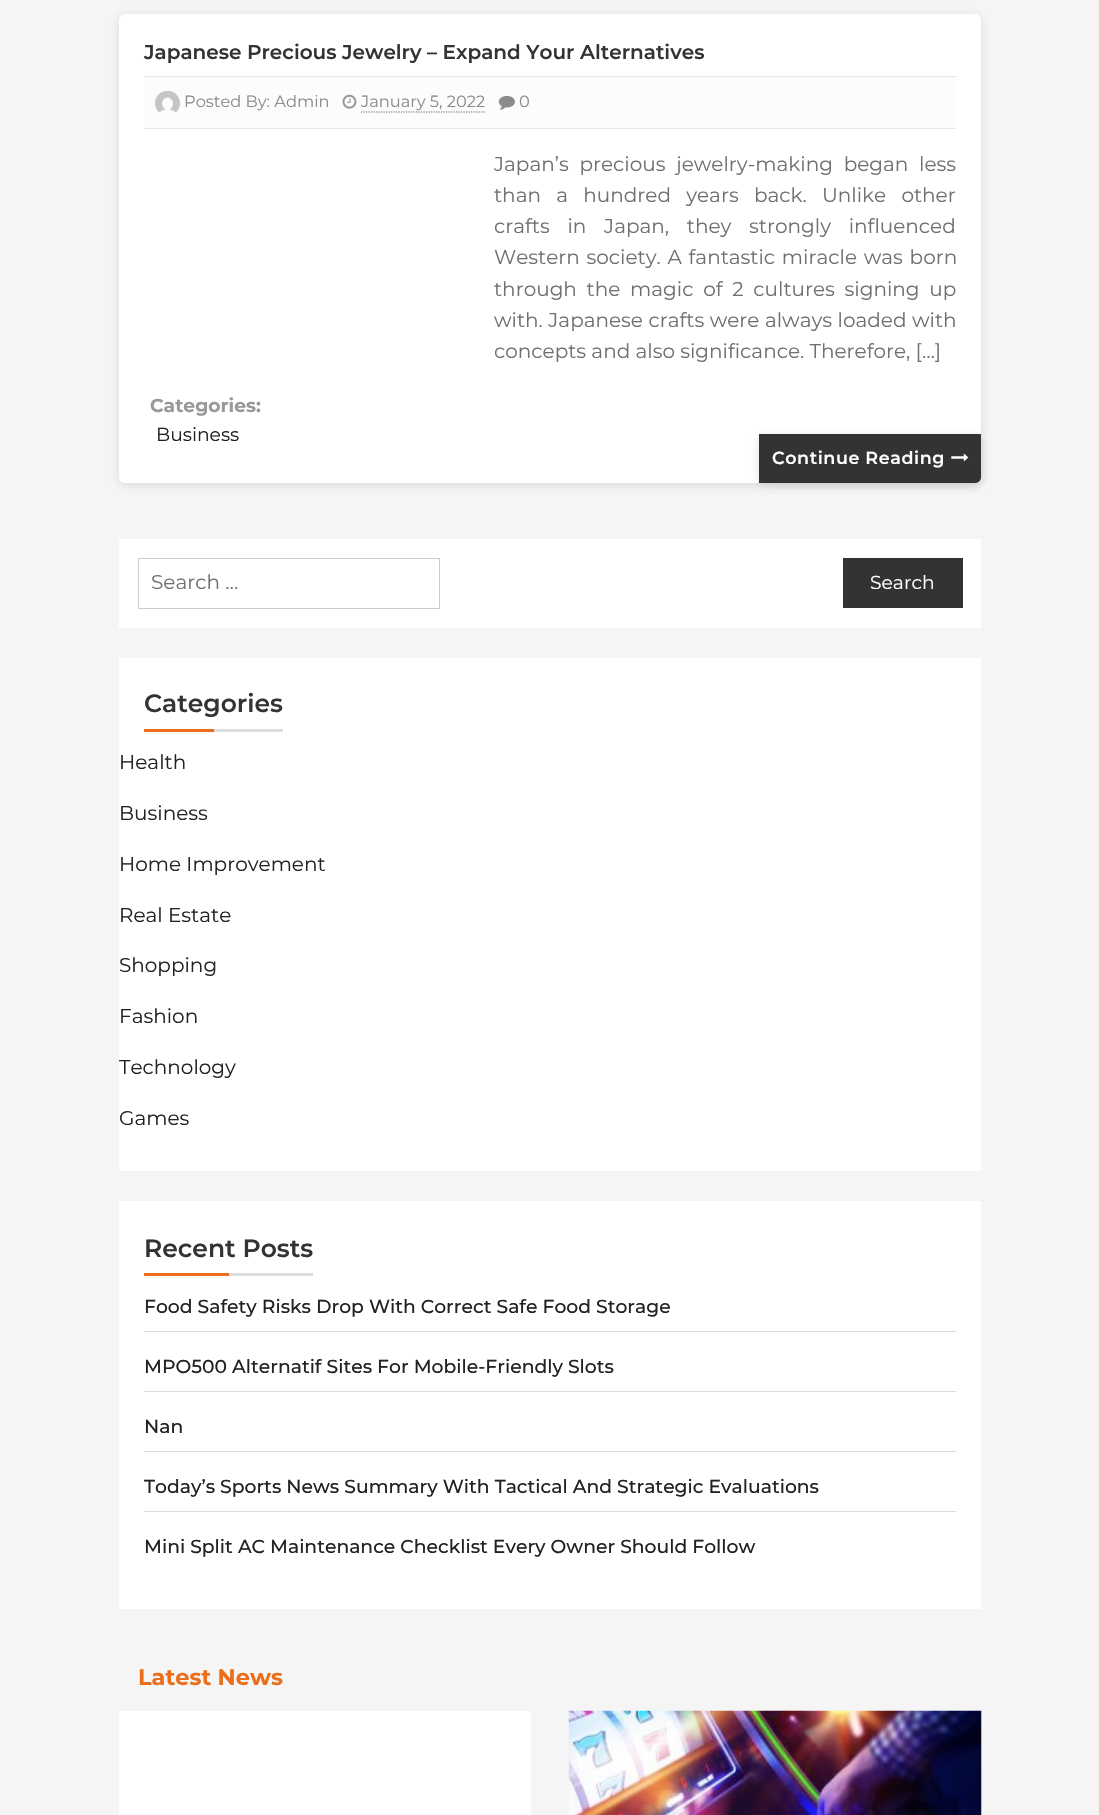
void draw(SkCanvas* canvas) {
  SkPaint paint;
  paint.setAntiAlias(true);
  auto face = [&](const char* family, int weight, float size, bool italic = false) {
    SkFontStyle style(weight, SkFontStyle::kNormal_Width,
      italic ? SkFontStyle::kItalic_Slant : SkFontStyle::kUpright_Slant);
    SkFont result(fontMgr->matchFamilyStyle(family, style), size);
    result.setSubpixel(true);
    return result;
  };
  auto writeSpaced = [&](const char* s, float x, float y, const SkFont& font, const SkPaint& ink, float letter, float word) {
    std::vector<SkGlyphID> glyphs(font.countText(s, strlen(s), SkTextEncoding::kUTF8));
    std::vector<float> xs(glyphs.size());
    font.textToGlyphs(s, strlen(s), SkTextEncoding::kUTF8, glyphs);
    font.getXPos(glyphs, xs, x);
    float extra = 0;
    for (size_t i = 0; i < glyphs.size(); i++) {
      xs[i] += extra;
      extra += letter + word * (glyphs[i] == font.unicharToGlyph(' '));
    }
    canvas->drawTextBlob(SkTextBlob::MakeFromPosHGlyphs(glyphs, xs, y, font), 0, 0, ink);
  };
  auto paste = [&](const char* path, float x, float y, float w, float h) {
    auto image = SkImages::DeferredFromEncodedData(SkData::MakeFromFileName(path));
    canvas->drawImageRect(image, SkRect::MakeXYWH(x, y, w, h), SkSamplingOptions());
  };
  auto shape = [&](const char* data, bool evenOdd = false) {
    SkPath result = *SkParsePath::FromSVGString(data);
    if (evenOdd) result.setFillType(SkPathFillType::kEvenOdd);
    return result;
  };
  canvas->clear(0xfff5f5f5);
  paint.setColor(0x33636363);
  paint.setMaskFilter(SkMaskFilter::MakeBlur(kNormal_SkBlurStyle, 5));
  canvas->drawRoundRect(SkRect::MakeXYWH(119, 16, 862, 469), 6, 6, paint);
  paint.setMaskFilter(nullptr);
  paint.setColor(0xffffffff);
  canvas->drawRoundRect(SkRect::MakeXYWH(119, 14, 862, 469), 6, 6, paint);
  {
    const struct { float x, y, w, h; SkColor color; } items[] = {
      {144, 77, 812, 51, 0xfffcfcfc},
      {144, 76, 812, 1, 0xffe6e6e6},
      {144, 128, 812, 1, 0xffe6e6e6},
    };
    for (auto [x, y, w, h, color] : items) {
      paint.setColor(color);
      canvas->drawRect(SkRect::MakeXYWH(x, y, w, h), paint);
    }
  }
  paste("img/1.png", 155, 91, 25, 22);
  paste("img/2.png", 342, 94, 15, 15);
  paint.setStroke(true);
  paint.setStrokeWidth(1.2f);
  paint.setColor(0xff666666);
  paint.setPathEffect(SkDashPathEffect::Make({{1.25f, 1.25f}}, 0));
  canvas->drawPath(shape("M361 112H485"), paint);
  paint.setPathEffect(nullptr);
  paste("img/3.png", 498, 95, 17, 15);
  paint.setStroke(false);
  paint.setColor(0x33636363);
  paint.setMaskFilter(SkMaskFilter::MakeBlur(kNormal_SkBlurStyle, 5));
  canvas->drawRoundRect(SkRect::MakeXYWH(759, 436, 222, 49), 6, 6, paint);
  paint.setMaskFilter(nullptr);
  paint.setColor(0xff333333);
  canvas->drawPath(shape("M759 434H981V477C981 480.5 978.5 483 975 483H759Z"), paint);
  paste("img/4.png", 951, 453, 18, 9);
  paint.setColor(0xffffffff);
  canvas->drawRect(SkRect::MakeXYWH(119, 539, 862, 89), paint);
  paint.setStroke(true);
  paint.setStrokeWidth(1);
  paint.setColor(0xffcccccc);
  canvas->drawRect(SkRect::MakeXYWH(138.5f, 558.5f, 301, 50), paint);
  paint.setStroke(false);
  {
    const struct { float x, y, w, h; SkColor color; } items[] = {
      {843, 558, 120, 50, 0xff333333},
      {119, 658, 862, 513, 0xffffffff},
      {144, 729, 70, 3, 0xffeb6e1a},
      {214, 729, 69, 3, 0xffdddddd},
      {119, 1201, 862, 408, 0xffffffff},
      {144, 1273, 85, 3, 0xffeb6e1a},
      {229, 1273, 84, 3, 0xffdddddd},
      {144, 1331, 812, 1, 0xffdedede},
      {144, 1391, 812, 1, 0xffdedede},
      {144, 1451, 812, 1, 0xffdedede},
      {144, 1511, 812, 1, 0xffdedede},
      {119, 1711, 412, 104, 0xffffffff},
    };
    for (auto [x, y, w, h, color] : items) {
      paint.setColor(color);
      canvas->drawRect(SkRect::MakeXYWH(x, y, w, h), paint);
    }
  }
  paste("img/5.png", 568, 1710, 414, 105);
  auto f0 = face("Montserrat", 600, 20);
  paint.setColor(0xff333333);
  canvas->drawString("Japanese Precious Jewelry – Expand Your Alternatives", 144, 59, f0, paint);
  auto f1 = face("Montserrat", 400, 16.25f);
  paint.setColor(0xff8b8b8b);
  {
    const struct { const char* s; float x, y; } items[] = {
      {"Posted By: Admin", 184, 107},
      {"January 5, 2022", 361, 107},
      {"0", 519, 107},
    };
    for (auto [s, x, y] : items) {
      canvas->drawString(s, x, y, f1, paint);
    }
  }
  auto f2 = face("Montserrat", 400, 20);
  paint.setColor(0xff707070);
  writeSpaced("Japan’s precious jewelry-making began less", 494, 171, f2, paint, 0, 5.5f);
  writeSpaced("than a hundred years back. Unlike other", 494, 202, f2, paint, 0, 10);
  writeSpaced("crafts in Japan, they strongly influenced", 494, 233, f2, paint, 0, 12.5f);
  writeSpaced("Western society. A fantastic miracle was born", 494, 264, f2, paint, 0, 1.5f);
  writeSpaced("through the magic of 2 cultures signing up", 494, 296, f2, paint, 0, 4.5f);
  writeSpaced("with. Japanese crafts were always loaded with", 494, 327, f2, paint, 0, 0.25f);
  canvas->drawString("concepts and also significance. Therefore, […]", 494, 358, f2, paint);
  auto f3 = face("Montserrat", 700, 18.75f);
  paint.setColor(0xff999999);
  canvas->drawString("Categories:", 150, 412, f3, paint);
  auto f4 = face("Montserrat", 400, 18.75f);
  paint.setColor(0xff222222);
  canvas->drawString("Business", 156, 441, f4, paint);
  auto f5 = face("Montserrat", 600, 17.5f);
  paint.setColor(0xffffffff);
  writeSpaced("Continue Reading", 772, 464, f5, paint, 0.6f, 0);
  paint.setColor(0xff707070);
  canvas->drawString("Search …", 151, 589, f2, paint);
  paint.setColor(0xffffffff);
  canvas->drawString("Search", 870, 589, f4, paint);
  auto f6 = face("Montserrat", 600, 25);
  paint.setColor(0xff333333);
  canvas->drawString("Categories", 144, 712, f6, paint);
  paint.setColor(0xff222222);
  {
    const struct { const char* s; float x, y; } items[] = {
      {"Health", 119, 769},
      {"Business", 119, 820},
      {"Home Improvement", 119, 871},
      {"Real Estate", 119, 922},
      {"Shopping", 119, 972},
      {"Fashion", 119, 1023},
      {"Technology", 119, 1074},
      {"Games", 119, 1125},
    };
    for (auto [s, x, y] : items) {
      canvas->drawString(s, x, y, f2, paint);
    }
  }
  paint.setColor(0xff333333);
  canvas->drawString("Recent Posts", 144, 1257, f6, paint);
  auto f7 = face("Montserrat", 500, 18.75f);
  paint.setColor(0xff222222);
  {
    const struct { const char* s; float x, y; } items[] = {
      {"Food Safety Risks Drop With Correct Safe Food Storage", 144, 1313},
      {"MPO500 Alternatif Sites For Mobile-Friendly Slots", 144, 1373},
      {"Nan", 144, 1433},
      {"Today’s Sports News Summary With Tactical And Strategic Evaluations", 144, 1493},
      {"Mini Split AC Maintenance Checklist Every Owner Should Follow", 144, 1553},
    };
    for (auto [s, x, y] : items) {
      canvas->drawString(s, x, y, f7, paint);
    }
  }
  auto f8 = face("Montserrat", 700, 22.5f);
  paint.setColor(0xffeb6e1a);
  canvas->drawString("Latest News", 138, 1685, f8, paint);
}
